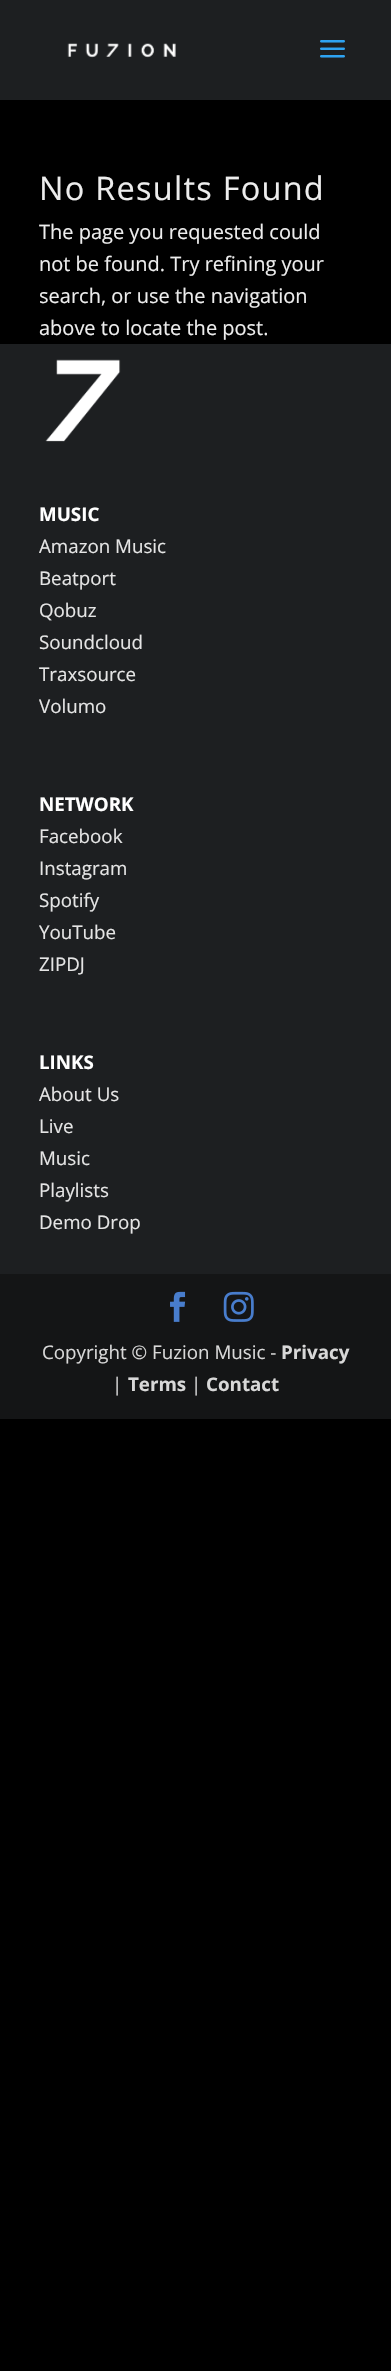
void draw(SkCanvas* canvas) {
  SkPaint paint;
  paint.setAntiAlias(true);
  auto face = [&](const char* family, int weight, float size, bool italic = false) {
    SkFontStyle style(weight, SkFontStyle::kNormal_Width,
      italic ? SkFontStyle::kItalic_Slant : SkFontStyle::kUpright_Slant);
    SkFont result(fontMgr->matchFamilyStyle(family, style), size);
    result.setSubpixel(true);
    return result;
  };
  auto writeSpaced = [&](const char* s, float x, float y, const SkFont& font, const SkPaint& ink, float letter, float word) {
    std::vector<SkGlyphID> glyphs(font.countText(s, strlen(s), SkTextEncoding::kUTF8));
    std::vector<float> xs(glyphs.size());
    font.textToGlyphs(s, strlen(s), SkTextEncoding::kUTF8, glyphs);
    font.getXPos(glyphs, xs, x);
    float extra = 0;
    for (size_t i = 0; i < glyphs.size(); i++) {
      xs[i] += extra;
      extra += letter + word * (glyphs[i] == font.unicharToGlyph(' '));
    }
    canvas->drawTextBlob(SkTextBlob::MakeFromPosHGlyphs(glyphs, xs, y, font), 0, 0, ink);
  };
  auto paste = [&](const char* path, float x, float y, float w, float h) {
    auto image = SkImages::DeferredFromEncodedData(SkData::MakeFromFileName(path));
    canvas->drawImageRect(image, SkRect::MakeXYWH(x, y, w, h), SkSamplingOptions());
  };
  canvas->clear(0xff000000);
  paint.setColor(0xff1d1f21);
  canvas->drawRect(SkRect::MakeXYWH(0, 0, 391, 100), paint);
  paste("img/1.png", 67, 43, 109, 15);
  paste("img/2.png", 320, 40, 25, 18);
  canvas->drawRect(SkRect::MakeXYWH(0, 344, 391, 930), paint);
  paste("img/3.png", 45, 359, 76, 83);
  paint.setColor(0xff141516);
  canvas->drawRect(SkRect::MakeXYWH(0, 1274, 391, 145), paint);
  paste("img/4.png", 170, 1291, 16, 31);
  paste("img/5.png", 223, 1291, 31, 31);
  auto f0 = face("Open Sans", 400, 32.5f);
  paint.setColor(0xffededed);
  writeSpaced("No Results Found", 39, 200, f0, paint, 1.25f, 0);
  auto f1 = face("Open Sans", 400, 20);
  {
    const struct { const char* s; float x, y; } items[] = {
      {"The page you requested could", 39, 239},
      {"not be found. Try refining your", 39, 271},
      {"search, or use the navigation", 39, 303},
      {"above to locate the post.", 39, 335},
    };
    for (auto [s, x, y] : items) {
      canvas->drawString(s, x, y, f1, paint);
    }
  }
  auto f2 = face("Open Sans", 700, 18.75f);
  paint.setColor(0xffffffff);
  canvas->drawString("MUSIC", 39, 521, f2, paint);
  auto f3 = face("Open Sans", 400, 18.75f);
  paint.setColor(0xffe5e5e5);
  {
    const struct { const char* s; float x, y; } items[] = {
      {"Amazon Music", 39, 553},
      {"Beatport", 39, 585},
      {"Qobuz", 39, 617},
      {"Soundcloud", 39, 649},
      {"Traxsource", 39, 681},
      {"Volumo", 39, 713},
    };
    for (auto [s, x, y] : items) {
      canvas->drawString(s, x, y, f3, paint);
    }
  }
  paint.setColor(0xffffffff);
  canvas->drawString("NETWORK", 39, 811, f2, paint);
  paint.setColor(0xffe5e5e5);
  {
    const struct { const char* s; float x, y; } items[] = {
      {"Facebook", 39, 843},
      {"Instagram", 39, 875},
      {"Spotify", 39, 907},
      {"YouTube", 39, 939},
      {"ZIPDJ", 39, 971},
    };
    for (auto [s, x, y] : items) {
      canvas->drawString(s, x, y, f3, paint);
    }
  }
  paint.setColor(0xffffffff);
  canvas->drawString("LINKS", 39, 1069, f2, paint);
  paint.setColor(0xffe5e5e5);
  {
    const struct { const char* s; float x, y; } items[] = {
      {"About Us", 39, 1101},
      {"Live", 39, 1133},
      {"Music", 39, 1165},
      {"Playlists", 39, 1197},
      {"Demo Drop", 39, 1229},
    };
    for (auto [s, x, y] : items) {
      canvas->drawString(s, x, y, f3, paint);
    }
  }
  paint.setColor(0xffd8d8d8);
  canvas->drawString("Copyright © Fuzion Music -", 42, 1359, f3, paint);
  canvas->drawString("Privacy", 281, 1359, f2, paint);
  canvas->drawString("|", 112, 1391, f3, paint);
  canvas->drawString("Terms", 128, 1391, f2, paint);
  canvas->drawString("|", 191, 1391, f3, paint);
  canvas->drawString("Contact", 206, 1391, f2, paint);
}
